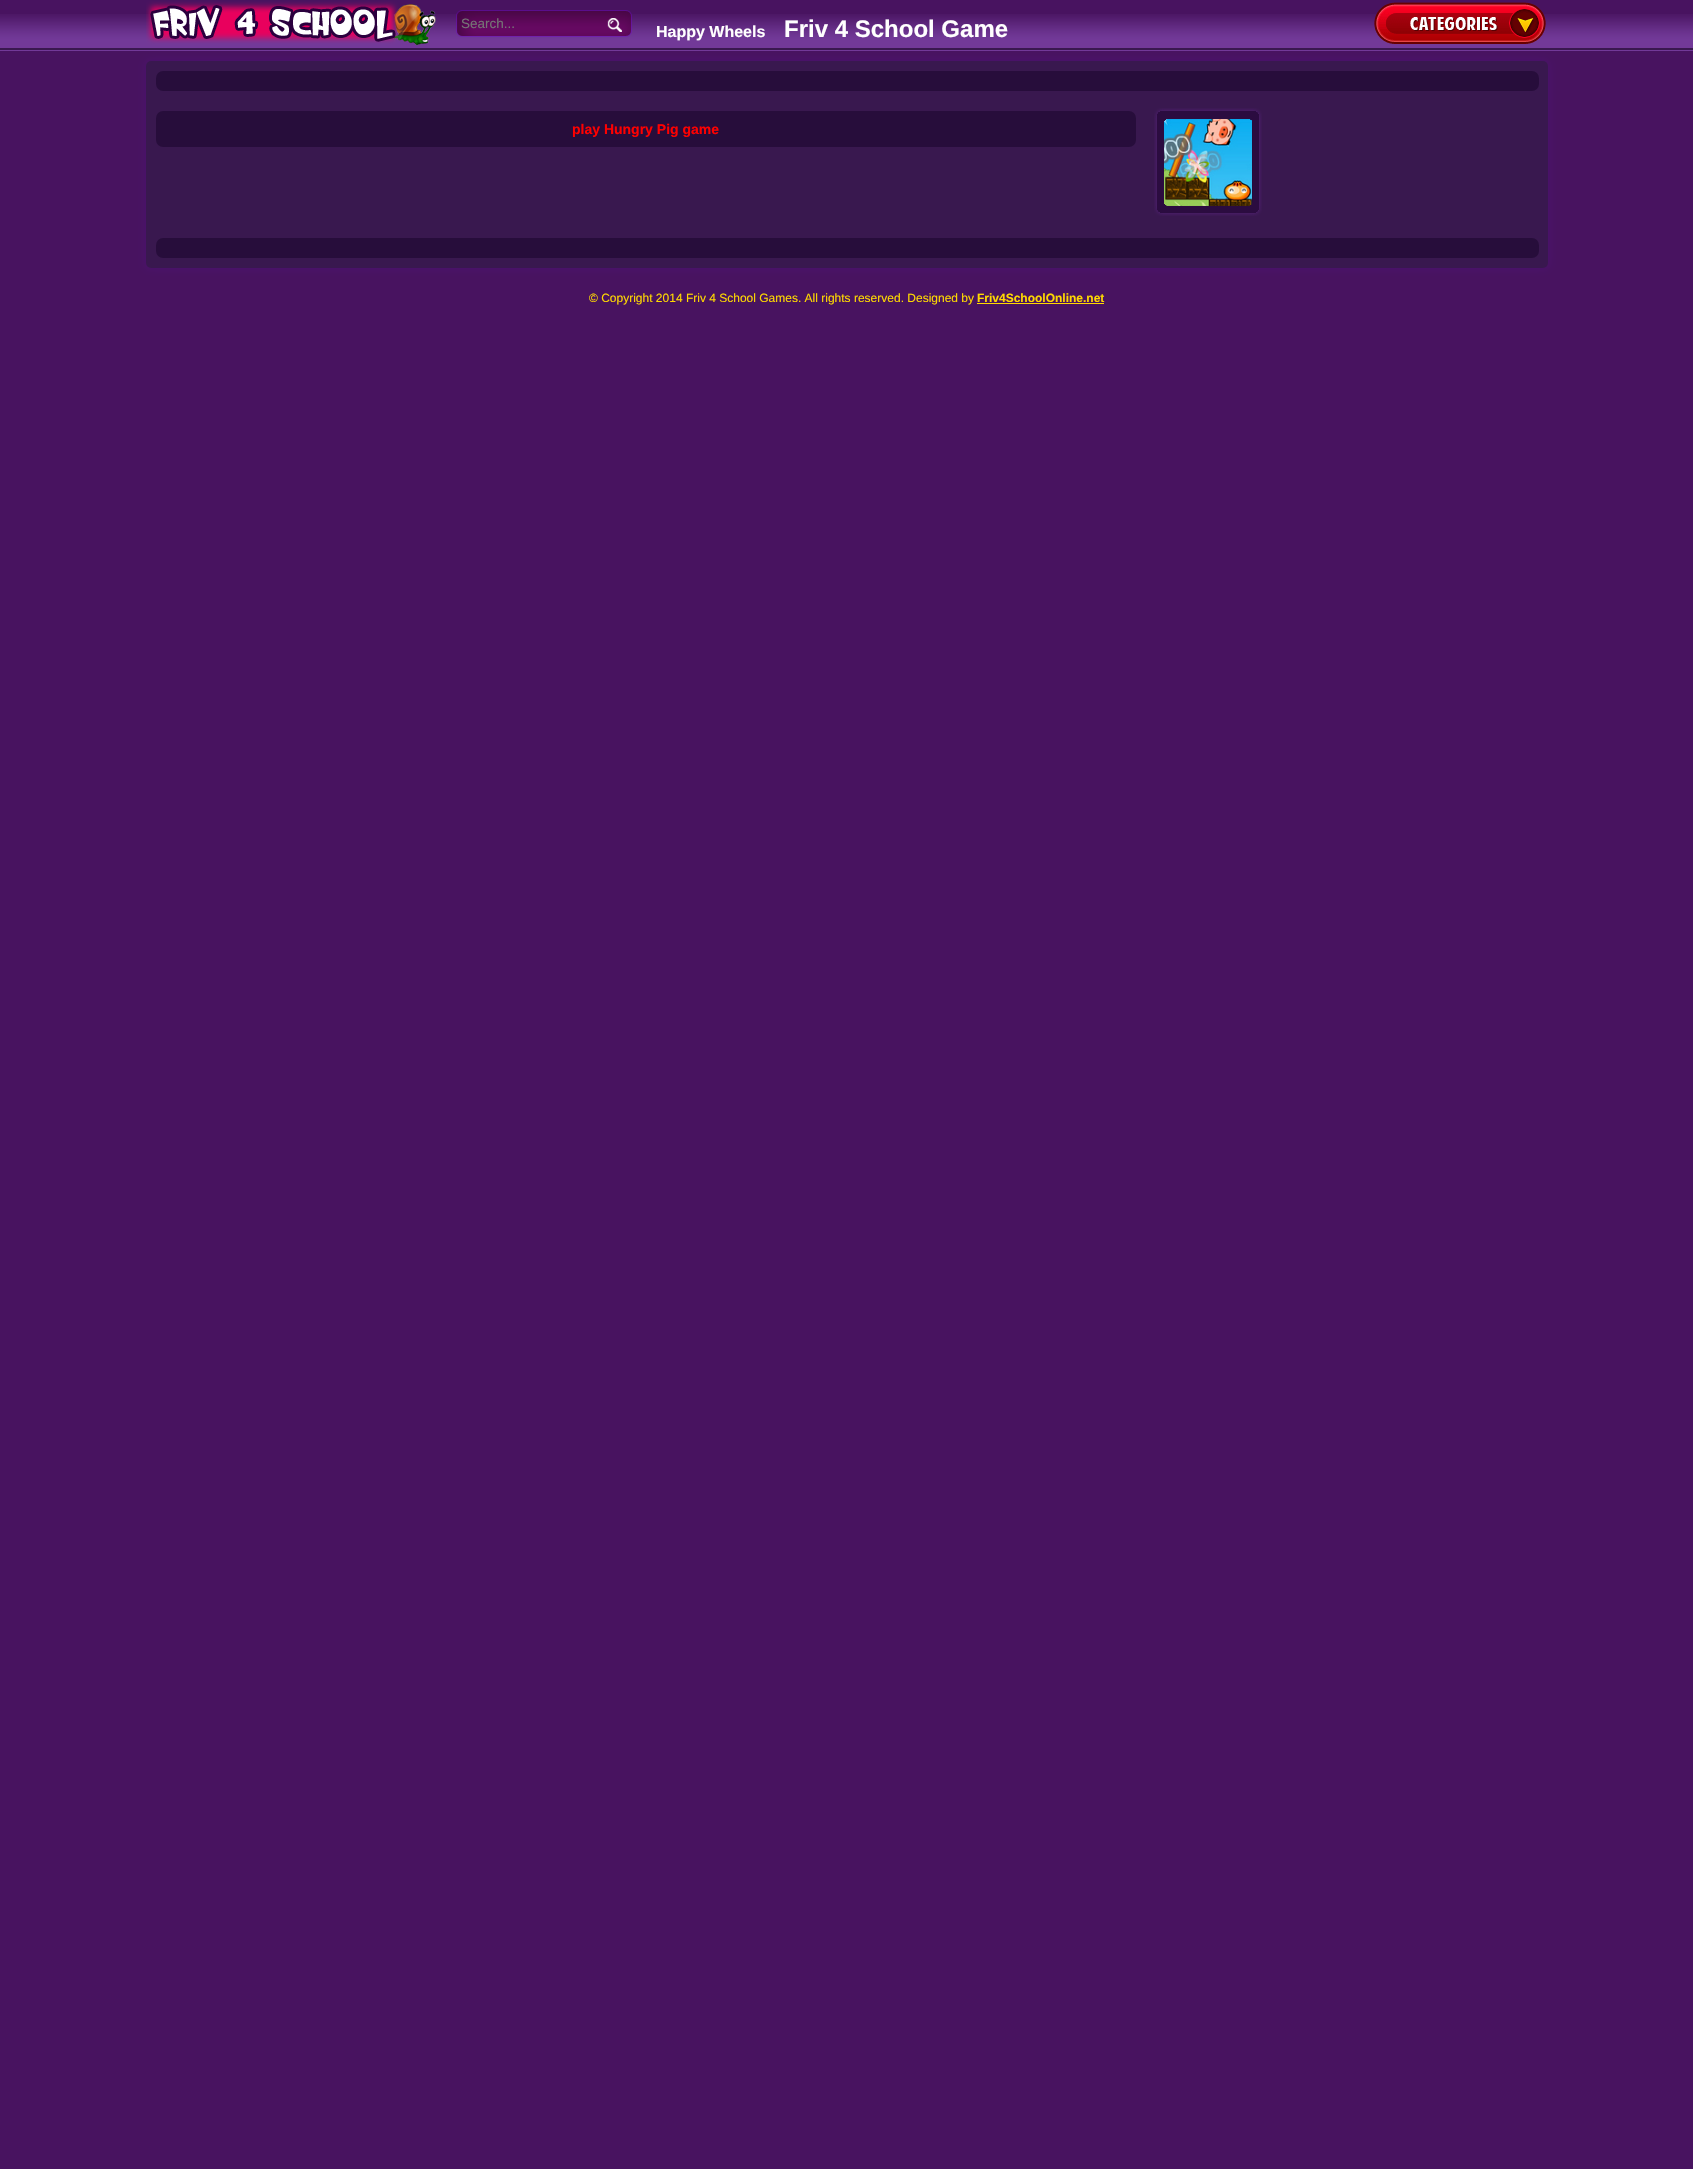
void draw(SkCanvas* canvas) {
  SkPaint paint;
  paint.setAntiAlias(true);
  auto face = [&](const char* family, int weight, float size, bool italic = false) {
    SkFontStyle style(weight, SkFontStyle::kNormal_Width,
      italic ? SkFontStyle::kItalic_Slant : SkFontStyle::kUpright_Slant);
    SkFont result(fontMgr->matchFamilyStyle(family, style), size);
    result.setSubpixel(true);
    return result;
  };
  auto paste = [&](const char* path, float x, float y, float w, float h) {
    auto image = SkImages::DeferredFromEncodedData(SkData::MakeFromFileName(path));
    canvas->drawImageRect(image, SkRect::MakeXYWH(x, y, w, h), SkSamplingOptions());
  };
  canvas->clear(0xff481360);
  paste("img/1.png", 0, 14, 1693, 37);
  paste("img/2.png", 146, 1, 290, 44);
  paste("img/3.png", 456, 10, 176, 27);
  paste("img/4.png", 1374, 2, 172, 42);
  paint.setColor(0xff4a1071);
  paint.setMaskFilter(SkMaskFilter::MakeBlur(kNormal_SkBlurStyle, 4));
  canvas->drawRoundRect(SkRect::MakeXYWH(146, 61, 1402, 207), 5, 5, paint);
  paint.setMaskFilter(nullptr);
  paint.setColor(0xff39184f);
  canvas->drawRoundRect(SkRect::MakeXYWH(146, 61, 1402, 207), 5, 5, paint);
  paint.setColor(0xff270d3b);
  canvas->drawRoundRect(SkRect::MakeXYWH(156, 71, 1383, 20), 7, 7, paint);
  canvas->drawRoundRect(SkRect::MakeXYWH(156, 111, 980, 36), 7, 7, paint);
  paste("img/6.png", 1164, 119, 88, 87);
  paste("img/5.png", 1154, 108, 108, 108);
  canvas->drawRoundRect(SkRect::MakeXYWH(156, 238, 1383, 20), 7, 7, paint);
  paint.setColor(0xffffd900);
  canvas->drawRect(SkRect::MakeXYWH(977, 303, 127, 1), paint);
  auto f0 = face("Liberation Sans", 400, 13.5f);
  paint.setColor(0xff757575);
  canvas->drawString("Search...", 461, 28, f0, paint);
  auto f1 = face("Liberation Sans", 700, 16);
  paint.setColor(0xffffffff);
  canvas->drawString("Happy Wheels", 656, 37, f1, paint);
  auto f2 = face("Liberation Sans", 700, 24);
  canvas->drawString("Friv 4 School Game", 784, 37, f2, paint);
  auto f3 = face("Liberation Sans", 700, 14);
  paint.setColor(0xffff0000);
  canvas->drawString("play Hungry Pig game", 572, 134, f3, paint);
  auto f4 = face("Liberation Sans", 400, 12);
  paint.setColor(0xffffd900);
  canvas->drawString("© Copyright 2014 Friv 4 School Games. All rights reserved. Designed by", 589, 302, f4, paint);
  auto f5 = face("Liberation Sans", 700, 12);
  canvas->drawString("Friv4SchoolOnline.net", 977, 302, f5, paint);
}
